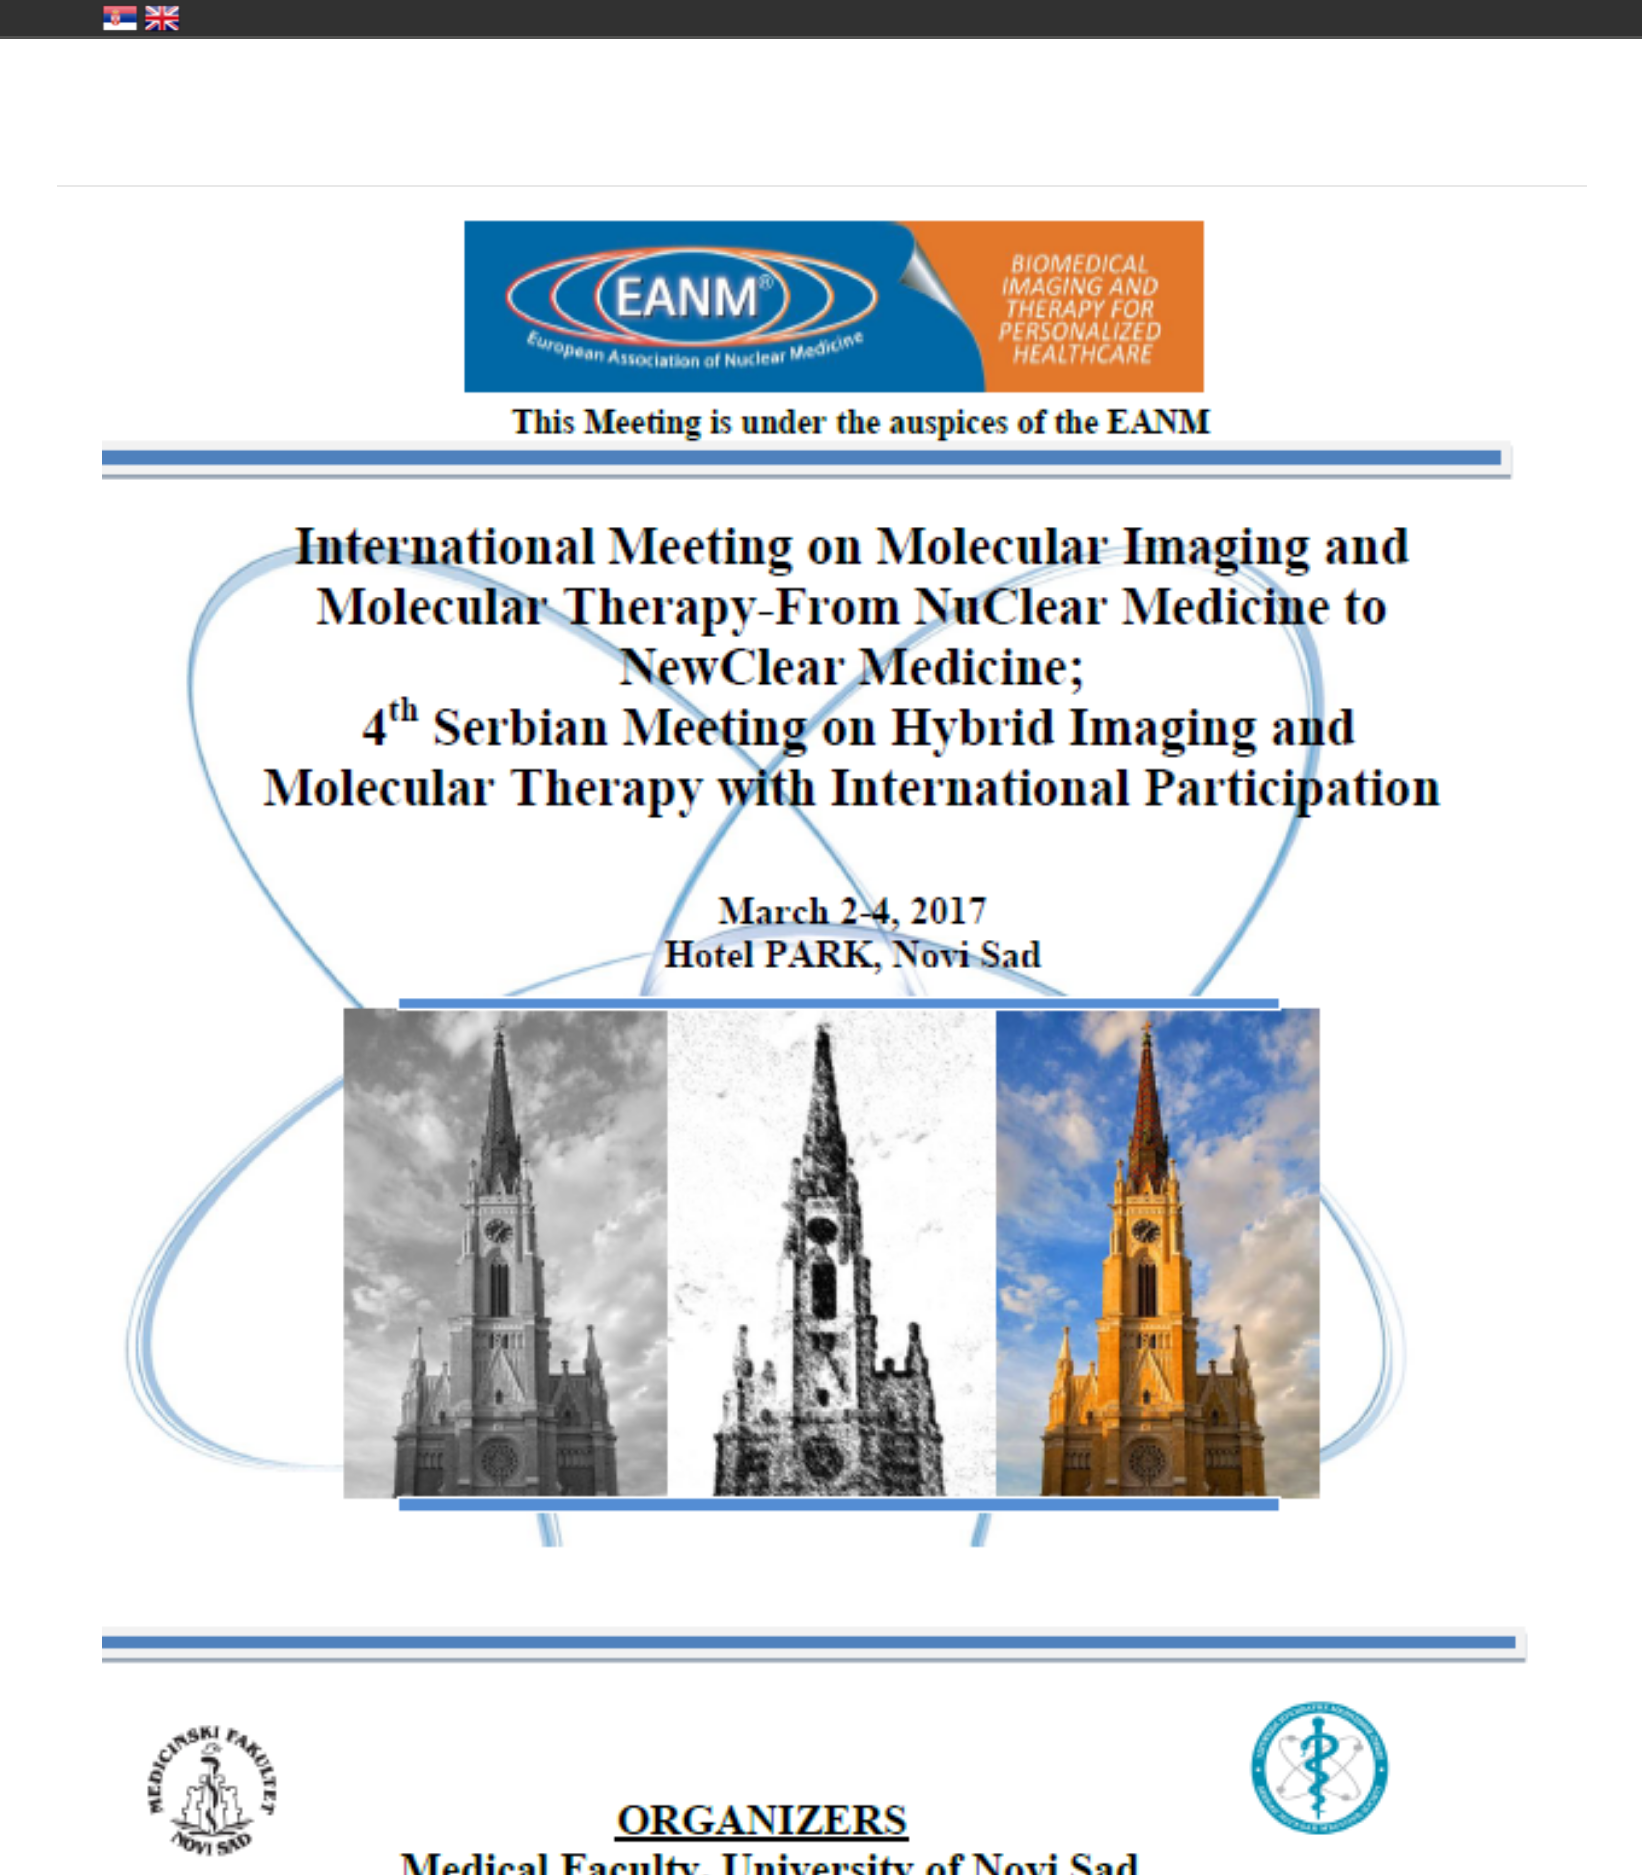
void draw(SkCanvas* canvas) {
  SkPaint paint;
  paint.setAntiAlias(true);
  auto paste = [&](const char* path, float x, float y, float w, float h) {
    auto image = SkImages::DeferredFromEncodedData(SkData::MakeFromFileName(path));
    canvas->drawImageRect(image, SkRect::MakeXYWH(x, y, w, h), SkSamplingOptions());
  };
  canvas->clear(0xffffffff);
  paint.setColor(0xff313131);
  canvas->drawRect(SkRect::MakeXYWH(0, 0, 1642, 36), paint);
  paint.setColor(0xff515150);
  canvas->drawRect(SkRect::MakeXYWH(0, 36, 1642, 3), paint);
  paste("img/1.png", 101, 4, 38, 27);
  paste("img/2.png", 143, 4, 38, 28);
  paint.setColor(0xffe8e8e8);
  canvas->drawRect(SkRect::MakeXYWH(57, 185, 1530, 2), paint);
  paste("img/3.png", 102, 220, 1426, 1655);
}
